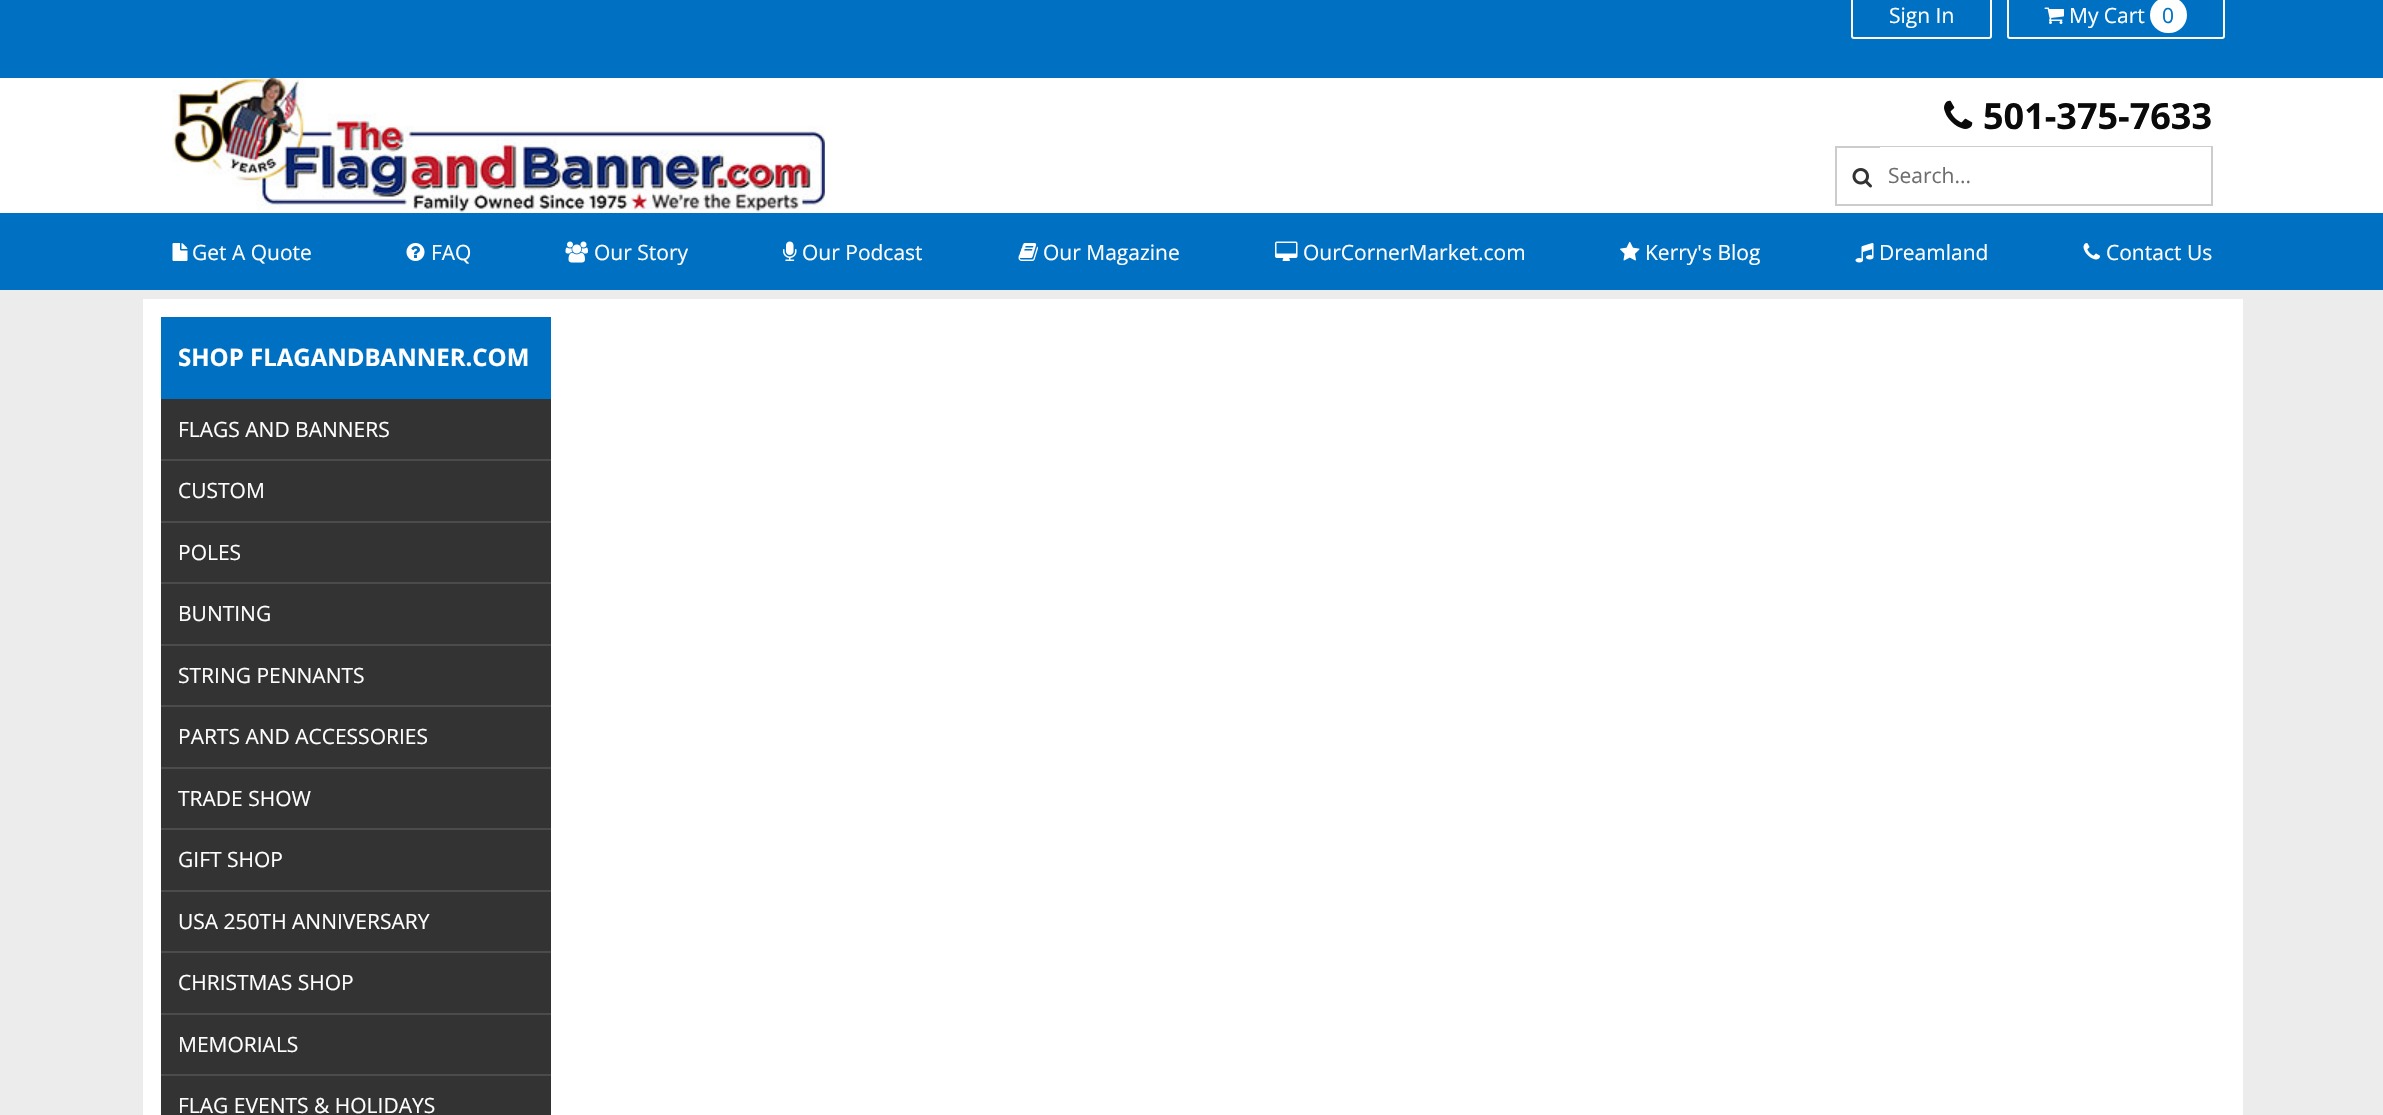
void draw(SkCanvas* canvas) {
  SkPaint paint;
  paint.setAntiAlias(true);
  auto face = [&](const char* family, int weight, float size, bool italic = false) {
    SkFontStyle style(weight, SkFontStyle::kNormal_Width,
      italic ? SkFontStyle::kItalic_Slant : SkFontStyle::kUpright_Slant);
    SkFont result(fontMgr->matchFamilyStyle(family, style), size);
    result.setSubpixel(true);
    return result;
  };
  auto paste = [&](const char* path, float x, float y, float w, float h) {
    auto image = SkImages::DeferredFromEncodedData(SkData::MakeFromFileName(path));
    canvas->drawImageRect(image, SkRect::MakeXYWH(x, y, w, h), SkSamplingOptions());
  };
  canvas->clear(0xffececec);
  paint.setColor(0xff0071c2);
  canvas->drawRect(SkRect::MakeXYWH(0, 0, 2383, 78), paint);
  canvas->drawRect(SkRect::MakeXYWH(0, 213, 2383, 77), paint);
  paint.setStroke(true);
  paint.setStrokeWidth(2);
  paint.setColor(0xffffffff);
  canvas->drawRoundRect(SkRect::MakeXYWH(1852, -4, 139, 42), 2, 2, paint);
  canvas->drawRoundRect(SkRect::MakeXYWH(2008, -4, 216, 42), 2, 2, paint);
  paste("img/1.png", 2044, 7, 20, 17);
  paint.setStroke(false);
  canvas->drawRoundRect(SkRect::MakeXYWH(2150, -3, 37, 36), 18, 18, paint);
  paste("img/2.png", 172, 243, 16, 18);
  paste("img/3.png", 406, 243, 19, 18);
  paste("img/4.png", 565, 241, 23, 22);
  paste("img/5.png", 783, 241, 14, 20);
  paste("img/6.png", 1018, 243, 20, 18);
  paste("img/7.png", 1275, 241, 23, 20);
  paste("img/8.png", 1620, 241, 20, 20);
  paste("img/9.png", 1855, 243, 19, 20);
  paste("img/10.png", 2083, 243, 17, 17);
  canvas->drawRect(SkRect::MakeXYWH(0, 78, 2383, 135), paint);
  paste("img/11.png", 172, 78, 653, 134);
  paste("img/12.png", 1944, 100, 29, 29);
  paint.setStroke(true);
  paint.setColor(0xffcccccc);
  canvas->drawRect(SkRect::MakeXYWH(1836, 147, 376, 58), paint);
  paste("img/13.png", 1852, 168, 20, 20);
  paint.setStroke(false);
  {
    const struct { float x, y, w, h; SkColor color; } items[] = {
      {1880, 147, 331, 1, 0xffffffff},
      {143, 299, 2100, 816, 0xffffffff},
      {161, 399, 390, 716, 0xff333333},
      {161, 317, 390, 82, 0xff0071c2},
      {161, 459, 390, 2, 0xff4b4b4b},
      {161, 521, 390, 2, 0xff4b4b4b},
      {161, 582, 390, 2, 0xff4b4b4b},
      {161, 644, 390, 2, 0xff4b4b4b},
      {161, 705, 390, 2, 0xff4b4b4b},
      {161, 767, 390, 2, 0xff4b4b4b},
      {161, 828, 390, 2, 0xff4b4b4b},
      {161, 890, 390, 2, 0xff4b4b4b},
      {161, 951, 390, 2, 0xff4b4b4b},
      {161, 1013, 390, 2, 0xff4b4b4b},
      {161, 1074, 390, 2, 0xff4b4b4b},
    };
    for (auto [x, y, w, h, color] : items) {
      paint.setColor(color);
      canvas->drawRect(SkRect::MakeXYWH(x, y, w, h), paint);
    }
  }
  auto f0 = face("Open Sans", 400, 21);
  paint.setColor(0xffffffff);
  canvas->drawString("Sign In", 1889, 23, f0, paint);
  canvas->drawString("My Cart", 2069, 23, f0, paint);
  paint.setColor(0xff0071c2);
  canvas->drawString("0", 2162, 23, f0, paint);
  paint.setColor(0xffffffff);
  {
    const struct { const char* s; float x, y; } items[] = {
      {"Get A Quote", 192, 260},
      {"FAQ", 431, 260},
      {"Our Story", 594, 260},
      {"Our Podcast", 802, 260},
      {"Our Magazine", 1043, 260},
      {"OurCornerMarket.com", 1303, 260},
      {"Kerry's Blog", 1645, 260},
      {"Dreamland", 1879, 260},
      {"Contact Us", 2106, 260},
    };
    for (auto [s, x, y] : items) {
      canvas->drawString(s, x, y, f0, paint);
    }
  }
  auto f1 = face("Open Sans", 700, 36);
  paint.setColor(0xff0a0a0a);
  canvas->drawString("501-375-7633", 1983, 129, f1, paint);
  paint.setColor(0xff6e6e6e);
  canvas->drawString("Search...", 1888, 183, f0, paint);
  auto f2 = face("Open Sans", 700, 24);
  paint.setColor(0xffffffff);
  canvas->drawString("SHOP FLAGANDBANNER.COM", 178, 366, f2, paint);
  {
    const struct { const char* s; float x, y; } items[] = {
      {"FLAGS AND BANNERS", 178, 437},
      {"CUSTOM", 178, 498},
      {"POLES", 178, 560},
      {"BUNTING", 178, 621},
      {"STRING PENNANTS", 178, 683},
      {"PARTS AND ACCESSORIES", 178, 744},
      {"TRADE SHOW", 178, 806},
      {"GIFT SHOP", 178, 867},
      {"USA 250TH ANNIVERSARY", 178, 929},
      {"CHRISTMAS SHOP", 178, 990},
      {"MEMORIALS", 178, 1052},
      {"FLAG EVENTS & HOLIDAYS", 178, 1113},
    };
    for (auto [s, x, y] : items) {
      canvas->drawString(s, x, y, f0, paint);
    }
  }
}
